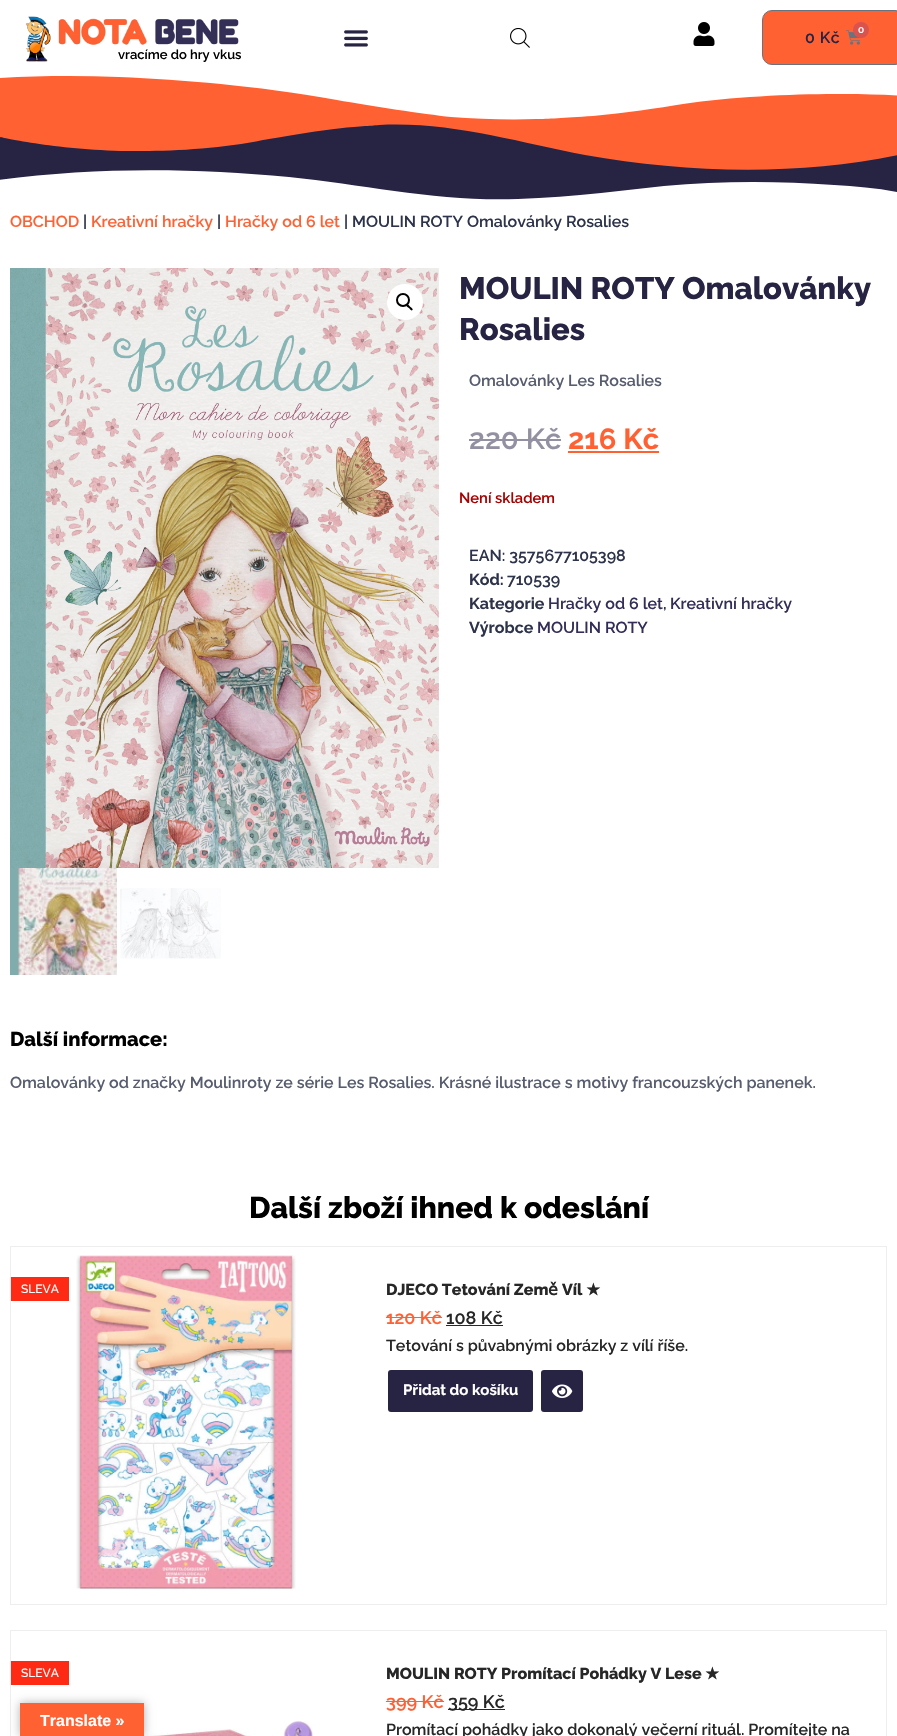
void draw(SkCanvas* canvas) {
  SkPaint paint;
  paint.setAntiAlias(true);
  auto face = [&](const char* family, int weight, float size, bool italic = false) {
    SkFontStyle style(weight, SkFontStyle::kNormal_Width,
      italic ? SkFontStyle::kItalic_Slant : SkFontStyle::kUpright_Slant);
    SkFont result(fontMgr->matchFamilyStyle(family, style), size);
    result.setSubpixel(true);
    return result;
  };
  auto writeSpaced = [&](const char* s, float x, float y, const SkFont& font, const SkPaint& ink, float letter, float word) {
    std::vector<SkGlyphID> glyphs(font.countText(s, strlen(s), SkTextEncoding::kUTF8));
    std::vector<float> xs(glyphs.size());
    font.textToGlyphs(s, strlen(s), SkTextEncoding::kUTF8, glyphs);
    font.getXPos(glyphs, xs, x);
    float extra = 0;
    for (size_t i = 0; i < glyphs.size(); i++) {
      xs[i] += extra;
      extra += letter + word * (glyphs[i] == font.unicharToGlyph(' '));
    }
    canvas->drawTextBlob(SkTextBlob::MakeFromPosHGlyphs(glyphs, xs, y, font), 0, 0, ink);
  };
  auto paste = [&](const char* path, float x, float y, float w, float h) {
    auto image = SkImages::DeferredFromEncodedData(SkData::MakeFromFileName(path));
    canvas->drawImageRect(image, SkRect::MakeXYWH(x, y, w, h), SkSamplingOptions());
  };
  auto shape = [&](const char* data, bool evenOdd = false) {
    SkPath result = *SkParsePath::FromSVGString(data);
    if (evenOdd) result.setFillType(SkPathFillType::kEvenOdd);
    return result;
  };
  canvas->clear(0xffffffff);
  paste("img/1.png", 344, 30, 24, 17);
  paste("img/2.png", 510, 28, 20, 20);
  paste("img/3.png", 693, 22, 22, 24);
  paint.setColor(0xffff6133);
  canvas->drawRoundRect(SkRect::MakeXYWH(762.5f, 10.5f, 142, 54), 9.5f, 9.5f, paint);
  paint.setStroke(true);
  paint.setStrokeWidth(1);
  paint.setColor(0xff69727d);
  canvas->drawRoundRect(SkRect::MakeXYWH(762.5f, 10.5f, 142, 54), 9.5f, 9.5f, paint);
  paste("img/4.png", 846, 30, 15, 15);
  paint.setStroke(false);
  paint.setColor(0xffd9534f);
  canvas->drawCircle(861, 30, 8, paint);
  paste("img/5.png", 25, 16, 26, 46);
  paste("img/6.png", 58, 18, 181, 27);
  paint.setColor(0xffff6133);
  canvas->drawRect(SkRect::MakeXYWH(0, 76, 897, 46), paint);
  paint.setColor(0xffffffff);
  canvas->drawPath(shape("M119 77C186 80 251 85 337 100C371 106 424 114 451 117C478 119 510 120 536 119C548 119 562 118 593 116C624 113 659 108 683 104C730 97 790 94 835 94C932 93 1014 108 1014 108V74H-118V90C-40 78 40 74 119 77Z"), paint);
  paint.setColor(0xff272343);
  canvas->drawRect(SkRect::MakeXYWH(0, 124, 897, 76), paint);
  paint.setColor(0xffff6133);
  canvas->drawPath(shape("M379 125C449 121 517 142 585 155C686 173 797 176 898 155V122H0V137C0 137 65 152 142 151C177 151 226 148 263 140C282 137 309 132 334 129C359 126 370 126 379 125Z"), paint);
  paint.setColor(0xffffffff);
  canvas->drawPath(shape("M518 199C441 202 366 185 289 177C194 168 94 167-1 180V201H897V192C876 188 855 186 834 185C777 181 720 181 664 186L601 193C573 196 546 198 518 199Z"), paint);
  paste("img/7.png", 10, 268, 429, 600);
  canvas->drawCircle(405, 302, 18, paint);
  paint.setStroke(true);
  paint.setStrokeWidth(2);
  paint.setColor(0xff000000);
  canvas->drawCircle(403, 300, 6, paint);
  paint.setStroke(false);
  canvas->drawPath(shape("M406.5 304.5C408 303.5 409.5 306 410 306.5C411 307.5 413.5 309 412.5 310C411 311.5 409.5 308.5 409 308C408 307.5 405.5 306 406.5 304.5Z"), paint);
  paste("img/8.png", 10, 868, 107, 107);
  paste("img/9.png", 120, 888, 101, 71);
  paint.setColor(0xff9391a1);
  canvas->drawRect(SkRect::MakeXYWH(469, 439, 92, 2), paint);
  paint.setColor(0xffff6133);
  canvas->drawRect(SkRect::MakeXYWH(568, 451, 91, 2), paint);
  paint.setStroke(true);
  paint.setStrokeWidth(1);
  paint.setColor(0xffeeeeee);
  canvas->drawRect(SkRect::MakeXYWH(10.5f, 1246.5f, 876, 358), paint);
  paint.setStroke(false);
  paint.setColor(0xffff2a13);
  canvas->drawRect(SkRect::MakeXYWH(11, 1277, 58, 24), paint);
  paste("img/10.png", 76, 1255, 220, 335);
  paint.setColor(0xffff6133);
  canvas->drawRect(SkRect::MakeXYWH(386, 1317, 56, 1), paint);
  paint.setColor(0xff272727);
  canvas->drawRect(SkRect::MakeXYWH(446, 1325, 57, 1), paint);
  paint.setColor(0xff272343);
  canvas->drawRoundRect(SkRect::MakeXYWH(388, 1370, 145, 42), 3, 3, paint);
  canvas->drawRoundRect(SkRect::MakeXYWH(541, 1370, 42, 42), 3, 3, paint);
  paste("img/11.png", 552, 1384, 21, 14);
  paint.setStroke(true);
  paint.setColor(0xffeeeeee);
  canvas->drawRect(SkRect::MakeXYWH(10.5f, 1630.5f, 876, 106), paint);
  paint.setStroke(false);
  paint.setColor(0xffff2a13);
  canvas->drawRect(SkRect::MakeXYWH(11, 1661, 58, 24), paint);
  paste("img/12.png", 146, 1721, 167, 15);
  paint.setColor(0xffff6133);
  canvas->drawRect(SkRect::MakeXYWH(386, 1701, 58, 1), paint);
  paint.setColor(0xff272727);
  canvas->drawRect(SkRect::MakeXYWH(448, 1709, 57, 1), paint);
  paint.setColor(0x4d000000);
  paint.setMaskFilter(SkMaskFilter::MakeBlur(kNormal_SkBlurStyle, 4.5f));
  canvas->drawRect(SkRect::MakeXYWH(20, 1703, 124, 33), paint);
  paint.setMaskFilter(nullptr);
  paint.setColor(0xffff6133);
  canvas->drawRect(SkRect::MakeXYWH(20, 1703, 124, 33), paint);
  auto f0 = face("Raleway", 600, 16);
  paint.setColor(0xff272343);
  writeSpaced("0 Kč", 805, 43, f0, paint, 0.5f, 0);
  auto f1 = face("Raleway", 600, 10);
  paint.setColor(0xffffffff);
  writeSpaced("0", 858, 33, f1, paint, 0.5f, 0);
  auto f2 = face("Raleway", 600, 13);
  paint.setColor(0xff000000);
  canvas->drawString("vracíme do hry vkus", 118, 59, f2, paint);
  paint.setColor(0xffff6133);
  canvas->drawString("OBCHOD", 10, 227, f0, paint);
  paint.setColor(0xff2d334a);
  canvas->drawString("|", 83, 227, f0, paint);
  paint.setColor(0xffff6133);
  canvas->drawString("Kreativní hračky", 91, 227, f0, paint);
  paint.setColor(0xff2d334a);
  canvas->drawString("|", 217, 227, f0, paint);
  paint.setColor(0xffff6133);
  canvas->drawString("Hračky od 6 let", 225, 227, f0, paint);
  paint.setColor(0xff2d334a);
  canvas->drawString("| MOULIN ROTY Omalovánky Rosalies", 344, 227, f0, paint);
  auto f3 = face("Raleway", 800, 31);
  paint.setColor(0xff272343);
  canvas->drawString("MOULIN ROTY Omalovánky", 459, 299, f3, paint);
  canvas->drawString("Rosalies", 459, 340, f3, paint);
  paint.setColor(0xff575c6e);
  canvas->drawString("Omalovánky Les Rosalies", 469, 386, f0, paint);
  auto f4 = face("Raleway", 600, 29);
  paint.setColor(0xff9391a1);
  canvas->drawString("220 Kč", 469, 449, f4, paint);
  auto f5 = face("Raleway", 700, 29);
  paint.setColor(0xffff6133);
  canvas->drawString("216 Kč", 568, 449, f5, paint);
  auto f6 = face("Raleway", 600, 14.75f);
  paint.setColor(0xffaa0000);
  canvas->drawString("Není skladem", 459, 503, f6, paint);
  paint.setColor(0xff2d334a);
  canvas->drawString("EAN: 3575677105398", 469, 561, f0, paint);
  auto f7 = face("Raleway", 700, 16);
  canvas->drawString("Kód:", 469, 585, f7, paint);
  canvas->drawString("710539", 507, 585, f0, paint);
  canvas->drawString("Kategorie", 469, 609, f7, paint);
  paint.setColor(0xff332e57);
  canvas->drawString("Hračky od 6 let", 548, 609, f0, paint);
  paint.setColor(0xff2d334a);
  canvas->drawString(",", 663, 609, f0, paint);
  paint.setColor(0xff332e57);
  canvas->drawString("Kreativní hračky", 670, 609, f0, paint);
  paint.setColor(0xff2d334a);
  canvas->drawString("Výrobce", 469, 633, f7, paint);
  paint.setColor(0xff332e57);
  canvas->drawString("MOULIN ROTY", 537, 633, f0, paint);
  auto f8 = face("Raleway", 800, 20);
  paint.setColor(0xff000000);
  canvas->drawString("Další informace:", 10, 1046, f8, paint);
  paint.setColor(0xff575c6e);
  canvas->drawString("Omalovánky od značky Moulinroty ze série Les Rosalies. Krásné ilustrace s motivy francouzských panenek.", 10, 1088, f0, paint);
  auto f9 = face("Raleway", 800, 30);
  paint.setColor(0xff000000);
  canvas->drawString("Další zboží ihned k odeslání", 249, 1218, f9, paint);
  auto f10 = face("Raleway", 500, 12);
  paint.setColor(0xffffffff);
  canvas->drawString("SLEVA", 21, 1293, f10, paint);
  auto f11 = face("Raleway", 800, 16);
  paint.setColor(0xff272727);
  canvas->drawString("DJECO Tetování Zem", 386, 1295, f11, paint);
  auto f12 = face("DejaVu Sans", 700, 16);
  canvas->drawString("ě", 548, 1295, f12, paint);
  canvas->drawString("Víl", 562, 1295, f11, paint);
  canvas->drawString("★", 586, 1295, f12, paint);
  auto f13 = face("Raleway", 600, 18);
  paint.setColor(0xffff6133);
  canvas->drawString("120 Kč", 386, 1324, f13, paint);
  paint.setColor(0xff272727);
  canvas->drawString("108 Kč", 446, 1324, f13, paint);
  canvas->drawString("Tetování s půvabnými obrázky z vílí říše.", 386, 1351, f0, paint);
  auto f14 = face("Raleway", 700, 15);
  paint.setColor(0xffffffff);
  canvas->drawString("Přidat do košíku", 403, 1395, f14, paint);
  canvas->drawString("SLEVA", 21, 1677, f10, paint);
  paint.setColor(0xff272727);
  canvas->drawString("MOULIN ROTY Promítací Pohádky V Lese", 386, 1679, f11, paint);
  canvas->drawString("★", 705, 1679, f12, paint);
  paint.setColor(0xffff6133);
  canvas->drawString("399 Kč", 386, 1708, f13, paint);
  paint.setColor(0xff272727);
  canvas->drawString("359 Kč", 448, 1708, f13, paint);
  canvas->drawString("Promítací pohádky jako dokonalý večerní rituál. Promítejte na", 386, 1735, f0, paint);
  auto f15 = face("Liberation Sans", 700, 16);
  paint.setColor(0xffffffff);
  canvas->drawString("Translate »", 40, 1726, f15, paint);
}
